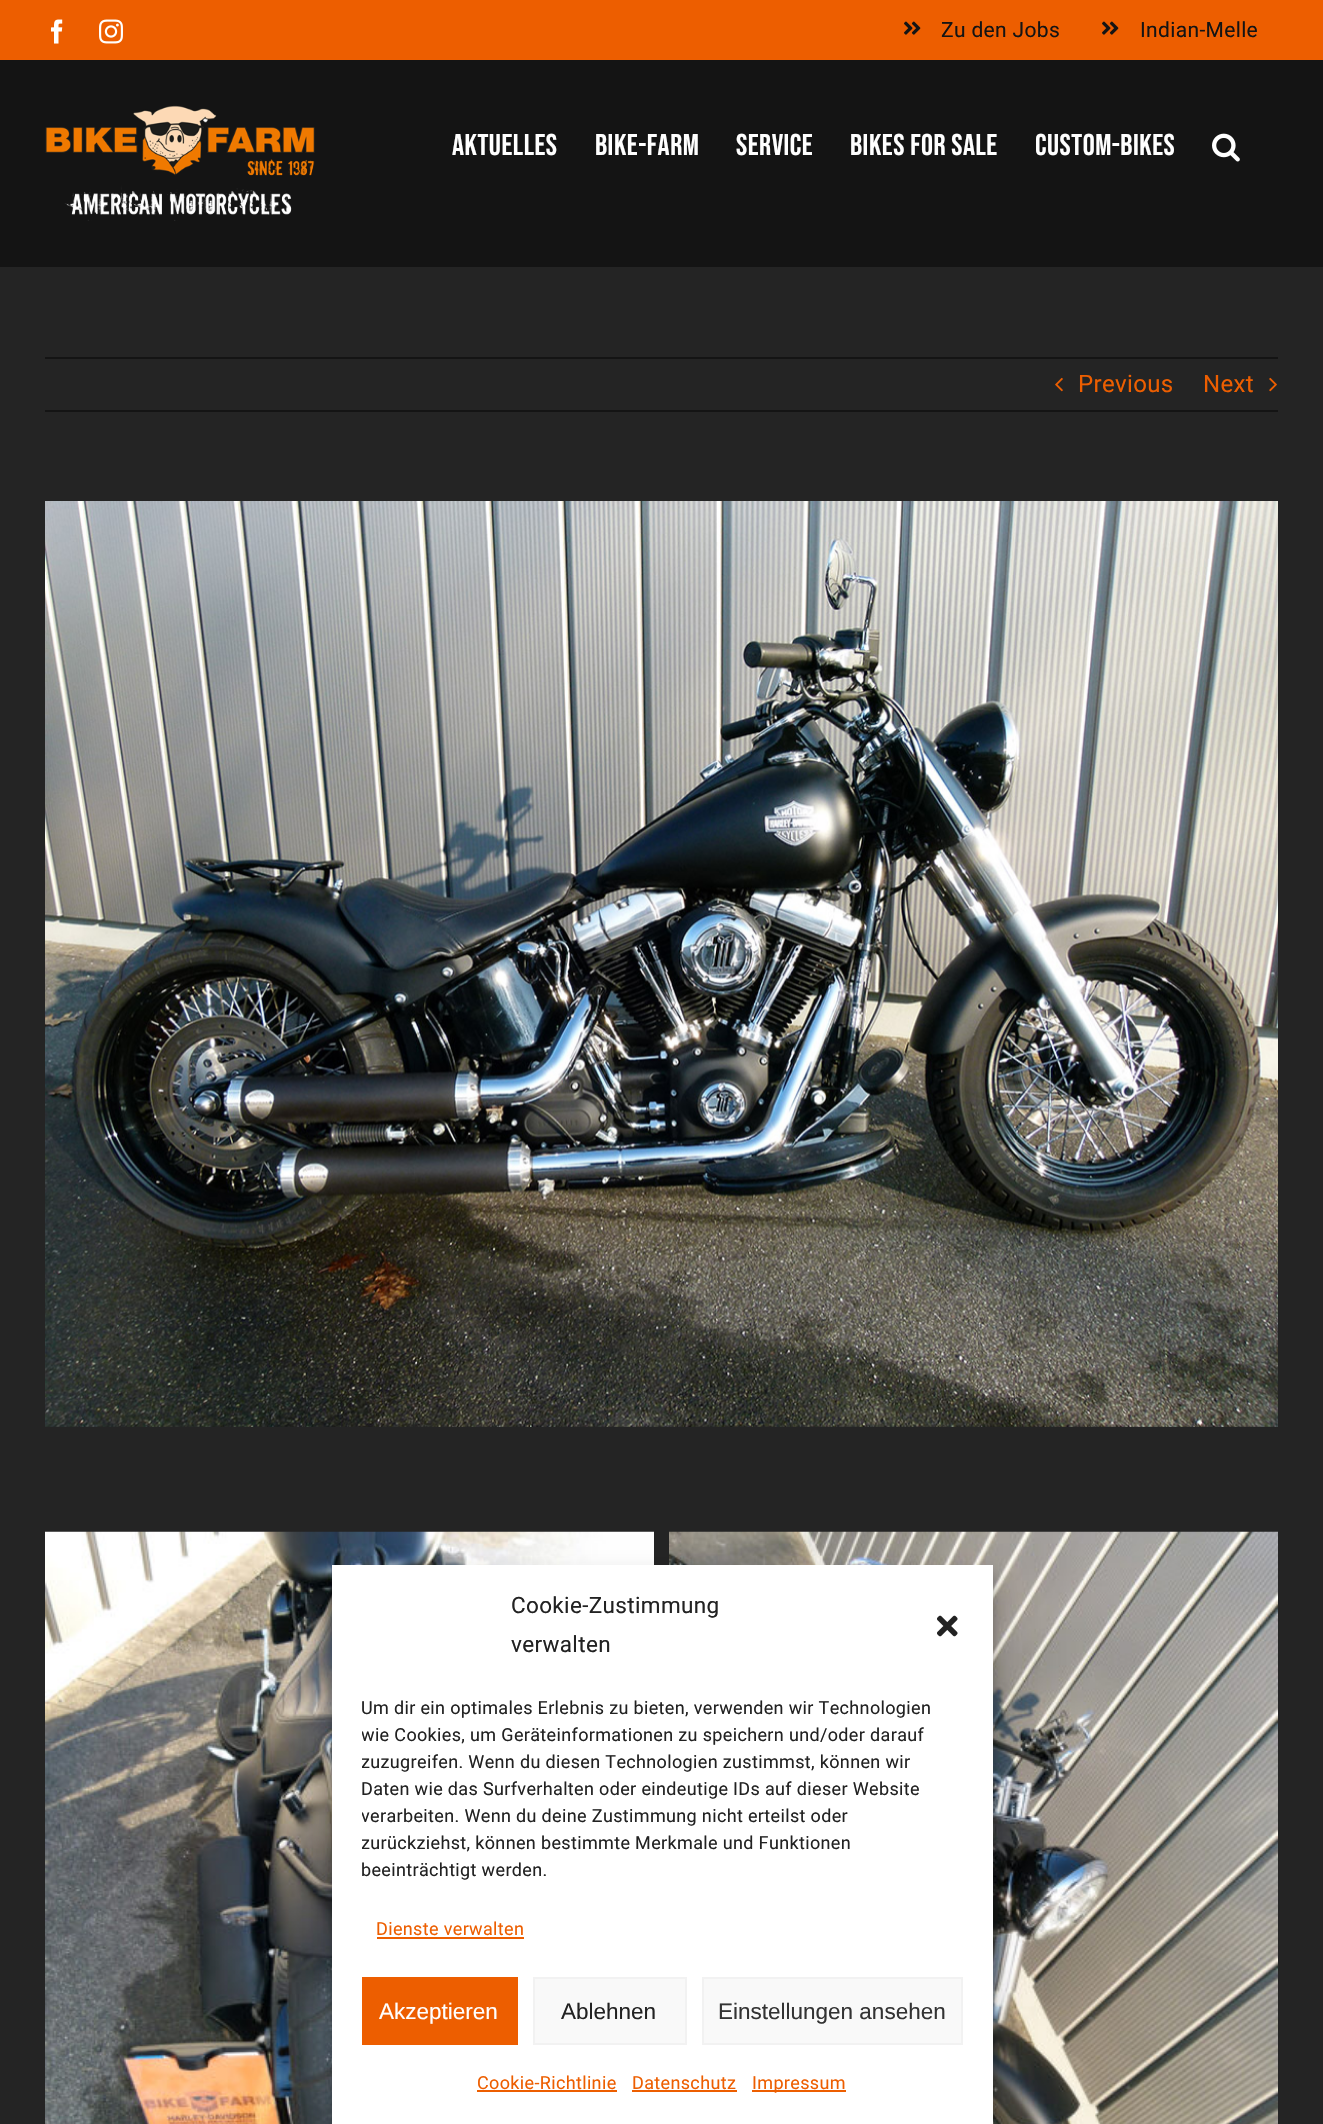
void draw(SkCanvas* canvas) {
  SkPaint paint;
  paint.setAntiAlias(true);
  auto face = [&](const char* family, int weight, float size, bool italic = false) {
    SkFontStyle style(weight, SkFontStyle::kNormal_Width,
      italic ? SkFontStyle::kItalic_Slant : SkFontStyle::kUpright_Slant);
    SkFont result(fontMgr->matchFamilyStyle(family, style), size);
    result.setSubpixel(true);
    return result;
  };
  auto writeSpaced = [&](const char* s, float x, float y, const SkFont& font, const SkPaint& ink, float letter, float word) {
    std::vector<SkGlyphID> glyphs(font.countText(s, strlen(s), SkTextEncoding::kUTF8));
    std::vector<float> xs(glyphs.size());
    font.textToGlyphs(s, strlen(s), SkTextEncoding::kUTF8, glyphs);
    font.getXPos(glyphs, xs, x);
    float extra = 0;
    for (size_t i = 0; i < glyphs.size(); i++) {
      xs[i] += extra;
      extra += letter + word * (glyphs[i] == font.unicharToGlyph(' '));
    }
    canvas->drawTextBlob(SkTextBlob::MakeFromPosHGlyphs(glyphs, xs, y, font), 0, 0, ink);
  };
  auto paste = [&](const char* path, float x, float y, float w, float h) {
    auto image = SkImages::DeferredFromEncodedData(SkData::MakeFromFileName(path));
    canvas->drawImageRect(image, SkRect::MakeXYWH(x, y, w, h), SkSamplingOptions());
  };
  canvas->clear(0xff242424);
  paint.setColor(0xffed5e00);
  canvas->drawRect(SkRect::MakeXYWH(0, 0, 1323, 60), paint);
  paste("img/1.png", 51, 19, 12, 25);
  paste("img/2.png", 99, 19, 24, 25);
  paste("img/3.png", 904, 21, 17, 14);
  paste("img/3.png", 1102, 21, 17, 14);
  paint.setColor(0xff141414);
  canvas->drawRect(SkRect::MakeXYWH(0, 60, 1323, 207), paint);
  paste("img/4.png", 45, 105, 270, 116);
  paste("img/5.png", 1212, 133, 28, 29);
  canvas->drawRect(SkRect::MakeXYWH(45, 357, 1233, 2), paint);
  canvas->drawRect(SkRect::MakeXYWH(45, 410, 1233, 2), paint);
  paste("img/6.png", 1055, 377, 8, 15);
  paste("img/7.png", 1269, 377, 8, 15);
  paste("img/8.png", 45, 501, 1233, 926);
  paste("img/9.png", 45, 1531, 609, 593);
  paste("img/10.png", 669, 1531, 609, 593);
  paint.setColor(0x3b000000);
  paint.setMaskFilter(SkMaskFilter::MakeBlur(kNormal_SkBlurStyle, 4.5f));
  canvas->drawRect(SkRect::MakeXYWH(332, 1574, 661, 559), paint);
  paint.setMaskFilter(nullptr);
  paint.setColor(0x30000000);
  paint.setMaskFilter(SkMaskFilter::MakeBlur(kNormal_SkBlurStyle, 15));
  canvas->drawRect(SkRect::MakeXYWH(332, 1580, 661, 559), paint);
  paint.setMaskFilter(nullptr);
  paint.setColor(0xffffffff);
  canvas->drawRect(SkRect::MakeXYWH(332, 1565, 661, 559), paint);
  paste("img/11.png", 937, 1615, 21, 22);
  paint.setColor(0xffed5e00);
  canvas->drawRect(SkRect::MakeXYWH(377, 1937, 147, 2), paint);
  canvas->drawRect(SkRect::MakeXYWH(362, 1977, 156, 68), paint);
  paint.setColor(0xfff9f9f9);
  canvas->drawRect(SkRect::MakeXYWH(534, 1978, 152, 66), paint);
  paint.setStroke(true);
  paint.setStrokeWidth(2);
  paint.setColor(0xfff2f2f2);
  canvas->drawRect(SkRect::MakeXYWH(534, 1978, 152, 66), paint);
  paint.setStroke(false);
  paint.setColor(0xfff9f9f9);
  canvas->drawRect(SkRect::MakeXYWH(703, 1978, 259, 66), paint);
  paint.setStroke(true);
  paint.setColor(0xfff2f2f2);
  canvas->drawRect(SkRect::MakeXYWH(703, 1978, 259, 66), paint);
  paint.setStroke(false);
  {
    const struct { float x, y, w, h; SkColor color; } items[] = {
      {477, 2090, 140, 2, 0xffed5e00},
      {632, 2090, 105, 2, 0xffed5e00},
      {752, 2090, 94, 2, 0xffed5e00},
    };
    for (auto [x, y, w, h, color] : items) {
      paint.setColor(color);
      canvas->drawRect(SkRect::MakeXYWH(x, y, w, h), paint);
    }
  }
  auto f0 = face("Roboto", 400, 21);
  paint.setColor(0xff141414);
  writeSpaced("Zu den Jobs", 941, 37, f0, paint, 0.35f, 0);
  writeSpaced("Indian-Melle", 1140, 37, f0, paint, 0.35f, 0);
  auto f1 = face("Bebas Neue", 400, 30);
  paint.setColor(0xffffffff);
  {
    const struct { const char* s; float x, y; } items[] = {
      {"Aktuelles", 452, 155},
      {"Bike-Farm", 595, 155},
      {"Service", 736, 155},
      {"Bikes for Sale", 850, 155},
      {"Custom-Bikes", 1035, 155},
    };
    for (auto [s, x, y] : items) {
      writeSpaced(s, x, y, f1, paint, 0.5f, 0);
    }
  }
  auto f2 = face("Roboto", 400, 24);
  paint.setColor(0xffed5e00);
  writeSpaced("Previous", 1078, 392, f2, paint, 0.35f, 0);
  writeSpaced("Next", 1203, 392, f2, paint, 0.35f, 0);
  auto f3 = face("Roboto", 400, 22.5f);
  paint.setColor(0xff222222);
  writeSpaced("Cookie-Zustimmung", 511, 1613, f3, paint, 0.35f, 0);
  writeSpaced("verwalten", 511, 1652, f3, paint, 0.35f, 0);
  auto f4 = face("Roboto", 400, 18);
  writeSpaced("Um dir ein optimales Erlebnis zu bieten, verwenden wir Technologien", 361, 1714, f4, paint, 0.35f, 0);
  canvas->save();
  canvas->clipRect(SkRect::MakeXYWH(362, 1695, 601, 197));
  writeSpaced("wie Cookies, um Geräteinformationen zu speichern und/oder darauf", 361, 1741, f4, paint, 0.35f, 0);
  writeSpaced("zuzugreifen. Wenn du diesen Technologien zustimmst, können wir", 361, 1768, f4, paint, 0.35f, 0);
  canvas->restore();
  writeSpaced("Daten wie das Surfverhalten oder eindeutige IDs auf dieser Website", 361, 1795, f4, paint, 0.35f, 0);
  canvas->save();
  canvas->clipRect(SkRect::MakeXYWH(362, 1695, 601, 197));
  writeSpaced("verarbeiten. Wenn du deine Zustimmung nicht erteilst oder", 361, 1822, f4, paint, 0.35f, 0);
  writeSpaced("zurückziehst, können bestimmte Merkmale und Funktionen", 361, 1849, f4, paint, 0.35f, 0);
  canvas->restore();
  writeSpaced("beeinträchtigt werden.", 361, 1876, f4, paint, 0.35f, 0);
  paint.setColor(0xffed5e00);
  writeSpaced("Dienste verwalten", 376, 1935, f4, paint, 0.35f, 0);
  auto f5 = face("Liberation Sans", 400, 22.5f);
  paint.setColor(0xffffffff);
  canvas->drawString("Akzeptieren", 379, 2019, f5, paint);
  paint.setColor(0xff222222);
  canvas->drawString("Ablehnen", 561, 2019, f5, paint);
  paint.setColor(0xff333333);
  canvas->drawString("Einstellungen ansehen", 718, 2019, f5, paint);
  paint.setColor(0xffed5e00);
  {
    const struct { const char* s; float x, y; } items[] = {
      {"Cookie-Richtlinie", 477, 2089},
      {"Datenschutz", 632, 2089},
      {"Impressum", 752, 2089},
    };
    for (auto [s, x, y] : items) {
      writeSpaced(s, x, y, f4, paint, 0.35f, 0);
    }
  }
}
